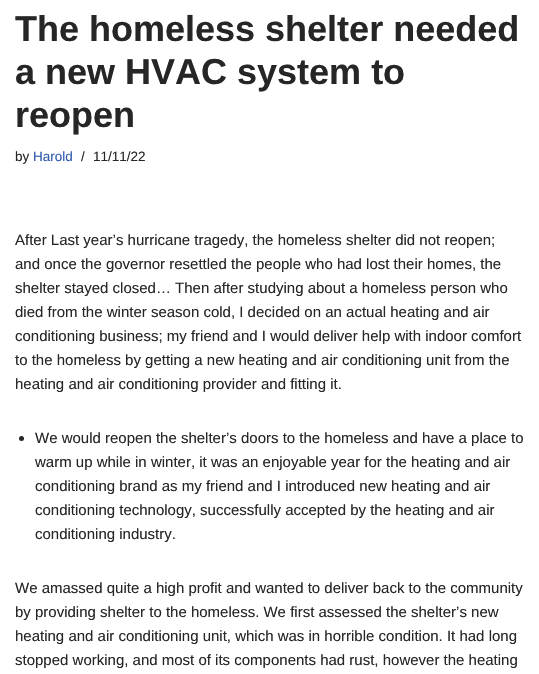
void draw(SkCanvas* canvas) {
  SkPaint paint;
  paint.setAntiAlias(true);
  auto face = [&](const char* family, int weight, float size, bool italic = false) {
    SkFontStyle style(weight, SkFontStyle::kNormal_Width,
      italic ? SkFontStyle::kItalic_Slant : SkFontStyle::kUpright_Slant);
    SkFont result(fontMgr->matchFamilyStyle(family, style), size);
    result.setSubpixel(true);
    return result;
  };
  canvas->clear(0xffffffff);
  paint.setColor(0xff272626);
  canvas->drawCircle(21.5f, 438.5f, 2.5f, paint);
  auto f0 = face("Liberation Sans", 700, 36);
  {
    const struct { const char* s; float x, y; } items[] = {
      {"The homeless shelter needed", 15, 41},
      {"a new HVAC system to", 15, 84},
      {"reopen", 15, 127},
    };
    for (auto [s, x, y] : items) {
      canvas->drawString(s, x, y, f0, paint);
    }
  }
  auto f1 = face("Liberation Sans", 400, 13.5f);
  canvas->drawString("by", 15, 161, f1, paint);
  paint.setColor(0xff2f5aae);
  canvas->drawString("Harold", 33, 161, f1, paint);
  paint.setColor(0xff272626);
  canvas->drawString("/", 81, 161, f1, paint);
  canvas->drawString("11/11/22", 93, 161, f1, paint);
  auto f2 = face("Liberation Sans", 400, 15);
  {
    const struct { const char* s; float x, y; } items[] = {
      {"After Last year’s hurricane tragedy, the homeless shelter did not reopen;", 15, 245},
      {"and once the governor resettled the people who had lost their homes, the", 15, 269},
      {"shelter stayed closed… Then after studying about a homeless person who", 15, 293},
      {"died from the winter season cold, I decided on an actual heating and air", 15, 317},
      {"conditioning business; my friend and I would deliver help with indoor comfort", 15, 341},
      {"to the homeless by getting a new heating and air conditioning unit from the", 15, 365},
      {"heating and air conditioning provider and fitting it.", 15, 389},
      {"We would reopen the shelter’s doors to the homeless and have a place to", 35, 443},
      {"warm up while in winter, it was an enjoyable year for the heating and air", 35, 467},
      {"conditioning brand as my friend and I introduced new heating and air", 35, 491},
      {"conditioning technology, successfully accepted by the heating and air", 35, 515},
      {"conditioning industry.", 35, 539},
      {"We amassed quite a high profit and wanted to deliver back to the community", 15, 593},
      {"by providing shelter to the homeless. We first assessed the shelter’s new", 15, 617},
      {"heating and air conditioning unit, which was in horrible condition. It had long", 15, 641},
      {"stopped working, and most of its components had rust, however the heating", 15, 665},
    };
    for (auto [s, x, y] : items) {
      canvas->drawString(s, x, y, f2, paint);
    }
  }
}
